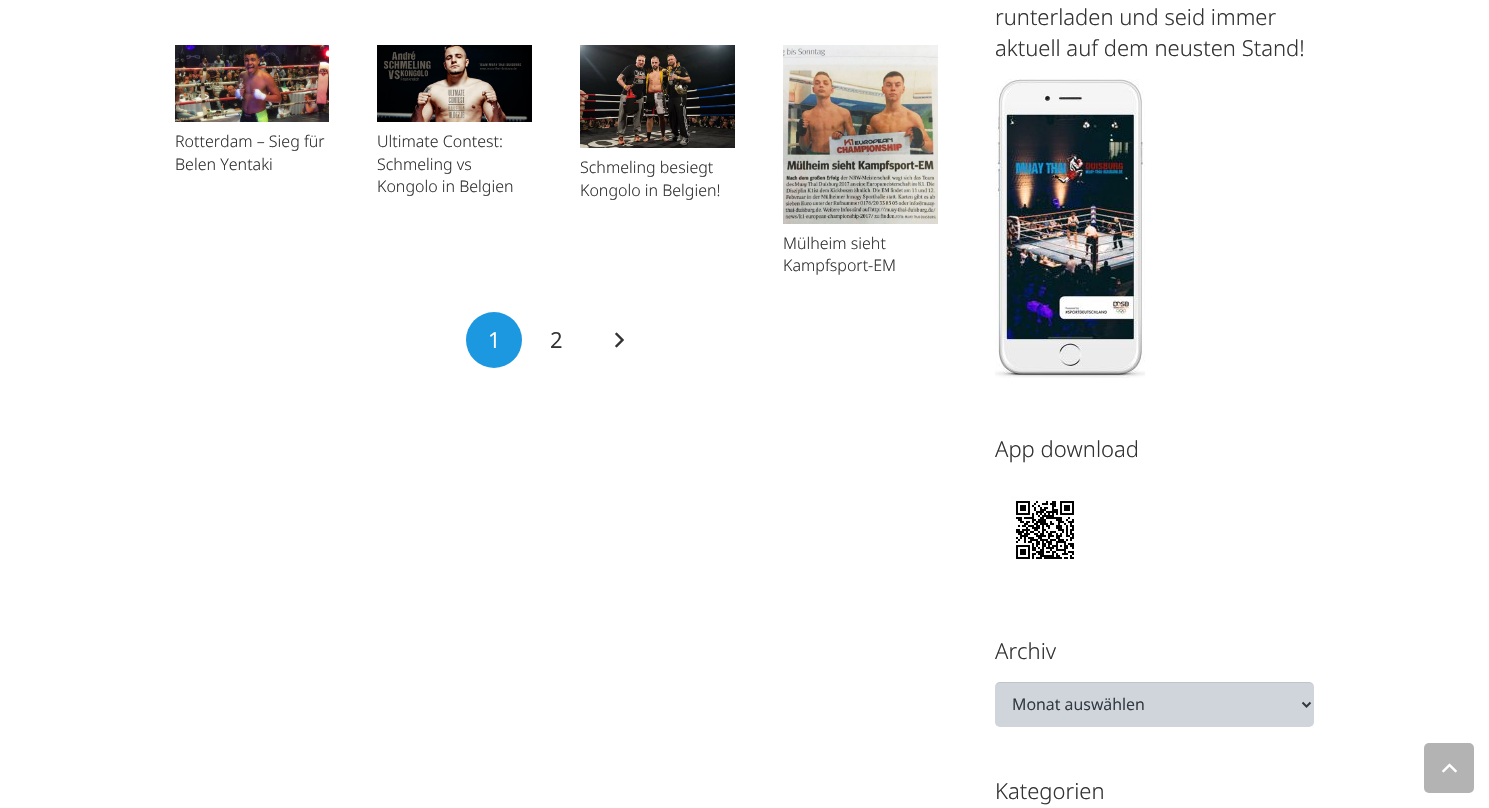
void draw(SkCanvas* canvas) {
  SkPaint paint;
  paint.setAntiAlias(true);
  auto face = [&](const char* family, int weight, float size, bool italic = false) {
    SkFontStyle style(weight, SkFontStyle::kNormal_Width,
      italic ? SkFontStyle::kItalic_Slant : SkFontStyle::kUpright_Slant);
    SkFont result(fontMgr->matchFamilyStyle(family, style), size);
    result.setSubpixel(true);
    return result;
  };
  auto paste = [&](const char* path, float x, float y, float w, float h) {
    auto image = SkImages::DeferredFromEncodedData(SkData::MakeFromFileName(path));
    canvas->drawImageRect(image, SkRect::MakeXYWH(x, y, w, h), SkSamplingOptions());
  };
  auto shape = [&](const char* data, bool evenOdd = false) {
    SkPath result = *SkParsePath::FromSVGString(data);
    if (evenOdd) result.setFillType(SkPathFillType::kEvenOdd);
    return result;
  };
  canvas->clear(0xffffffff);
  paste("img/1.png", 175, 45, 154, 77);
  paste("img/2.png", 377, 45, 155, 77);
  paste("img/3.png", 580, 45, 155, 103);
  paste("img/4.png", 783, 45, 155, 179);
  paint.setColor(0xff1b98e0);
  canvas->drawCircle(494, 340, 28, paint);
  paste("img/5.png", 615, 332, 9, 16);
  paste("img/6.png", 995, 79, 150, 299);
  paste("img/7.png", 1011, 496, 63, 64);
  paint.setColor(0xffd0d5db);
  canvas->drawRoundRect(SkRect::MakeXYWH(995, 682, 319, 45), 5, 5, paint);
  paint.setColor(0x14000000);
  canvas->drawPath(shape("M1000 683H1309C1312 683 1314 685 1314 688C1314 685 1312 682 1309 682H1000C997 682 995 685 995 688C995 685 997 683 1000 683Z"), paint);
  paint.setStroke(true);
  paint.setStrokeWidth(2);
  paint.setColor(0xff303940);
  canvas->drawPath(shape("M1302.5 702.5L1306.5 706.5L1310.5 702.5"), paint);
  paint.setStroke(false);
  paint.setColor(0xffb3b3b3);
  canvas->drawRoundRect(SkRect::MakeXYWH(1424, 743, 50, 50), 5, 5, paint);
  paste("img/8.png", 1442, 763, 15, 10);
  auto f0 = face("Noto Sans", 300, 16);
  paint.setColor(0xff333333);
  {
    const struct { const char* s; float x, y; } items[] = {
      {"Rotterdam – Sieg für", 175, 147},
      {"Belen Yentaki", 175, 170},
      {"Ultimate Contest:", 377, 147},
      {"Schmeling vs", 377, 170},
      {"Kongolo in Belgien", 377, 192},
      {"Schmeling besiegt", 580, 173},
      {"Kongolo in Belgien!", 580, 196},
      {"Mülheim sieht", 783, 249},
      {"Kampfsport-EM", 783, 271},
    };
    for (auto [s, x, y] : items) {
      canvas->drawString(s, x, y, f0, paint);
    }
  }
  auto f1 = face("Open Sans", 400, 22);
  paint.setColor(0xffffffff);
  canvas->drawString("1", 488, 348, f1, paint);
  paint.setColor(0xff333333);
  canvas->drawString("2", 550, 348, f1, paint);
  auto f2 = face("Noto Sans", 300, 22);
  {
    const struct { const char* s; float x, y; } items[] = {
      {"runterladen und seid immer", 995, 25},
      {"aktuell auf dem neusten Stand!", 995, 56},
      {"App download", 995, 457},
      {"Archiv", 995, 659},
    };
    for (auto [s, x, y] : items) {
      canvas->drawString(s, x, y, f2, paint);
    }
  }
  auto f3 = face("Open Sans", 400, 16);
  paint.setColor(0xff303940);
  canvas->drawString("Monat auswählen", 1012, 710, f3, paint);
  paint.setColor(0xff333333);
  canvas->drawString("Kategorien", 995, 799, f2, paint);
}
